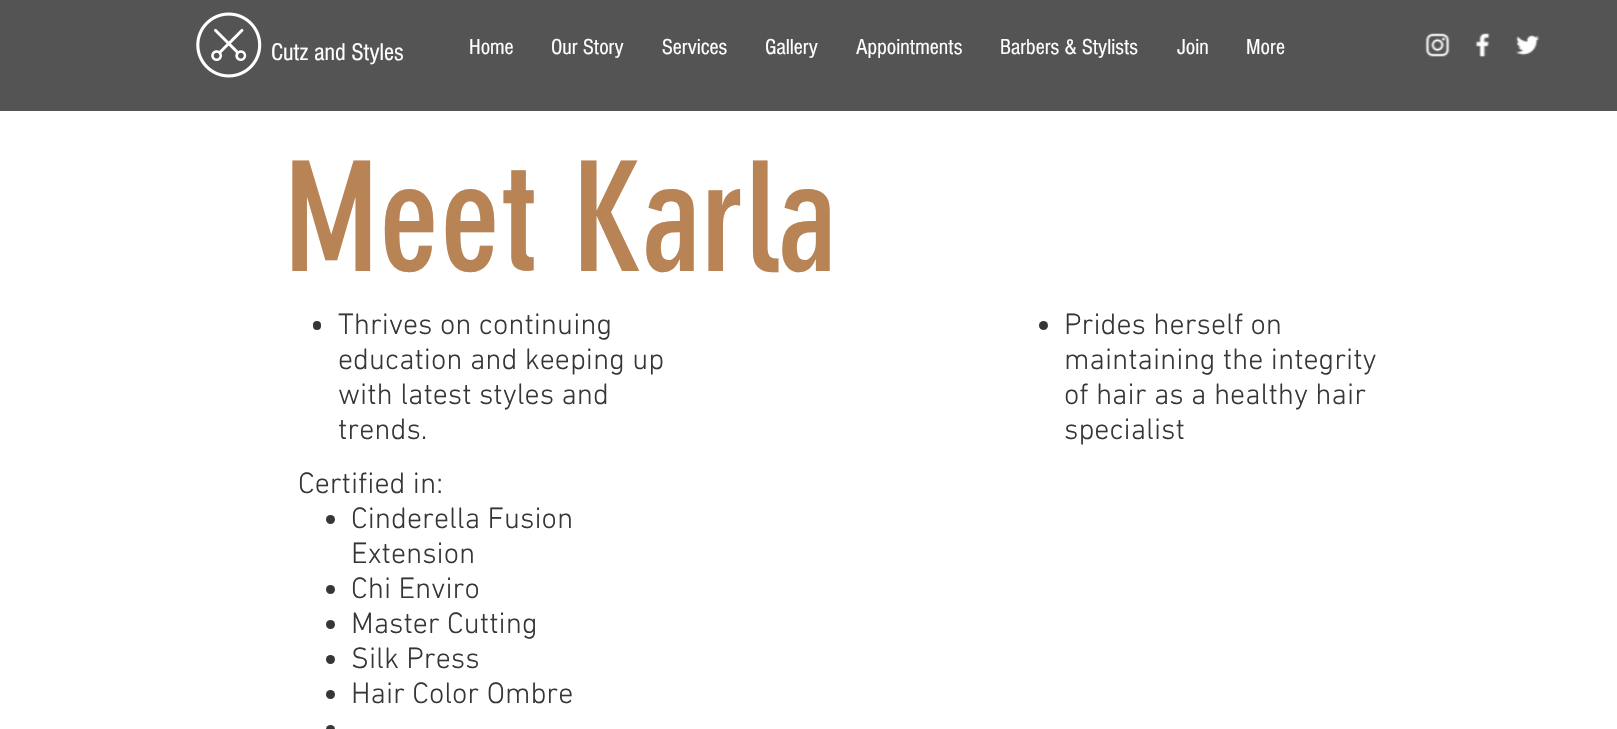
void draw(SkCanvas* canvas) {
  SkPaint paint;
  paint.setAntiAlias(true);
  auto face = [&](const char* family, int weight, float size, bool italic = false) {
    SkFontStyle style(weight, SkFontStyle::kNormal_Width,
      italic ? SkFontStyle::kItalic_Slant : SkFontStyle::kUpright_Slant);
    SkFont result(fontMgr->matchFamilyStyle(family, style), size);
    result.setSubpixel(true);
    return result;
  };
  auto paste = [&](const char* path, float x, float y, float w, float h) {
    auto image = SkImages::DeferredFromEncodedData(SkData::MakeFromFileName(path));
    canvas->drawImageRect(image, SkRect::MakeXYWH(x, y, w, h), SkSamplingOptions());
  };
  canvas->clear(0xffffffff);
  paint.setColor(0xff545454);
  canvas->drawRect(SkRect::MakeXYWH(0, 0, 1617, 111), paint);
  paste("img/1.png", 196, 12, 66, 66);
  paste("img/2.png", 1425, 33, 25, 24);
  paste("img/3.png", 1475, 32, 15, 26);
  paste("img/4.png", 1515, 35, 25, 21);
  paint.setColor(0xff363636);
  canvas->drawRoundRect(SkRect::MakeXYWH(313, 321, 8, 9), 4, 4, paint);
  canvas->drawCircle(1043.5f, 325.5f, 4.5f, paint);
  canvas->drawCircle(330.5f, 519.5f, 4.5f, paint);
  canvas->drawCircle(330.5f, 589.5f, 4.5f, paint);
  canvas->drawCircle(330.5f, 624.5f, 4.5f, paint);
  canvas->drawCircle(330.5f, 659.5f, 4.5f, paint);
  canvas->drawCircle(330.5f, 694.5f, 4.5f, paint);
  canvas->drawCircle(330.5f, 729.5f, 4.5f, paint);
  auto f0 = face("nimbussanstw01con", 400, 25);
  paint.setColor(0xffffffff);
  canvas->drawString("Cutz and Styles", 271, 60, f0, paint);
  auto f1 = face("nimbussanstw01con", 400, 22.5f);
  {
    const struct { const char* s; float x, y; } items[] = {
      {"Home", 469, 54},
      {"Our Story", 551, 54},
      {"Services", 662, 54},
      {"Gallery", 765, 54},
      {"Appointments", 856, 54},
      {"Barbers & Stylists", 1000, 54},
      {"Join", 1177, 54},
      {"More", 1246, 54},
    };
    for (auto [s, x, y] : items) {
      canvas->drawString(s, x, y, f1, paint);
    }
  }
  auto f2 = face("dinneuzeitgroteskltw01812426", 400, 150);
  paint.setColor(0xffb88355);
  canvas->drawString("Meet Karla", 284, 271, f2, paint);
  auto f3 = face("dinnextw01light", 300, 30);
  paint.setColor(0xff363636);
  {
    const struct { const char* s; float x, y; } items[] = {
      {"Thrives on continuing", 338, 334},
      {"education and keeping up", 338, 369},
      {"with latest styles and", 338, 404},
      {"trends.", 338, 439},
      {"Prides herself on", 1064, 334},
      {"maintaining the integrity", 1064, 369},
      {"of hair as a healthy hair", 1064, 404},
      {"specialist", 1064, 439},
      {"Certified in:", 298, 493},
      {"Cinderella Fusion", 351, 528},
      {"Extension", 351, 563},
      {"Chi Enviro", 351, 598},
      {"Master Cutting", 351, 633},
      {"Silk Press", 351, 668},
      {"Hair Color Ombre", 351, 703},
    };
    for (auto [s, x, y] : items) {
      canvas->drawString(s, x, y, f3, paint);
    }
  }
}
